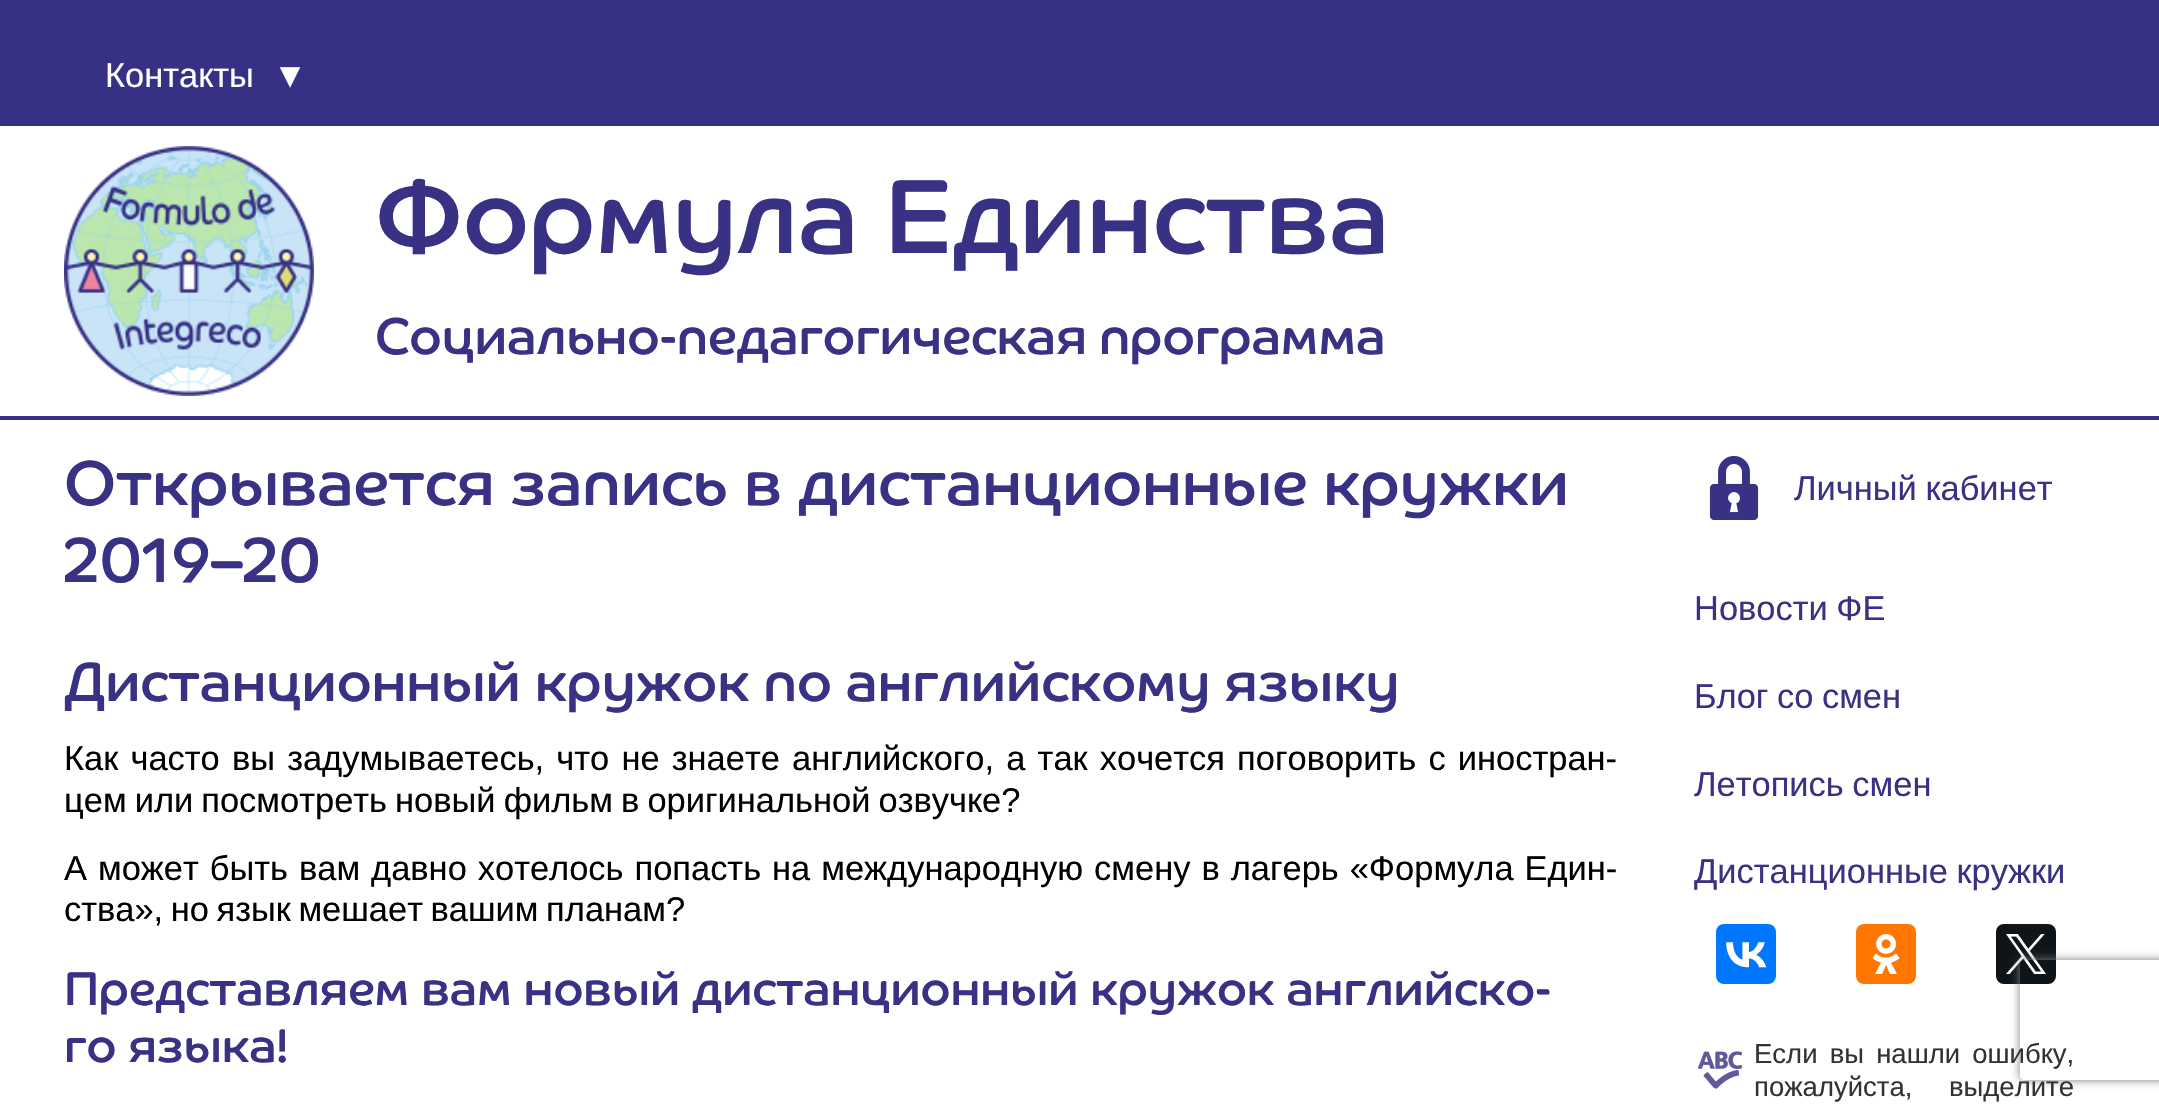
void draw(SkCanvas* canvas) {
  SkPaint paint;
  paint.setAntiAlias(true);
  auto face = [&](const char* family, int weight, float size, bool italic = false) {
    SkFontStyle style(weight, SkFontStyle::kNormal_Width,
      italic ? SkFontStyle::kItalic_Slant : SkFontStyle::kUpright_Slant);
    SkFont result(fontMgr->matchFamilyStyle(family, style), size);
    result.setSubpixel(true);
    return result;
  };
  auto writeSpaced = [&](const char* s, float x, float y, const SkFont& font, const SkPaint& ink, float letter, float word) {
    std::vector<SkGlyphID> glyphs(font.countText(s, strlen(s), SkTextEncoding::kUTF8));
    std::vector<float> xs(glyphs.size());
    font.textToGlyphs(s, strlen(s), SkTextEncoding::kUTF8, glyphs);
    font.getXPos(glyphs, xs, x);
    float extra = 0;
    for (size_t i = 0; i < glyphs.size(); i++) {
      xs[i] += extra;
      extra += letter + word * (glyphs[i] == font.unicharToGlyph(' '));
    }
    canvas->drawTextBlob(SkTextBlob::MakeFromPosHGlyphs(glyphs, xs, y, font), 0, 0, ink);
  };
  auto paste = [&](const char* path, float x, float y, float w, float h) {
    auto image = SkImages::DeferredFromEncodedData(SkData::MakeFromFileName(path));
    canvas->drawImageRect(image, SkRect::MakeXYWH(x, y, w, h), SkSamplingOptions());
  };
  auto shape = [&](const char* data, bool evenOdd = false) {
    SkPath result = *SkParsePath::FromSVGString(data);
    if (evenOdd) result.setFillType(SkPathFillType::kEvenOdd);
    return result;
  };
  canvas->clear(0xffffffff);
  paint.setColor(0xff373185);
  canvas->drawRect(SkRect::MakeXYWH(0, 0, 2159, 126), paint);
  paste("img/1.png", 64, 146, 250, 250);
  canvas->drawRect(SkRect::MakeXYWH(0, 416, 2159, 4), paint);
  paste("img/2.png", 1709, 456, 50, 64);
  paint.setColor(0xff0077ff);
  canvas->drawRoundRect(SkRect::MakeXYWH(1716, 924, 60, 60), 8, 8, paint);
  paste("img/3.png", 1726, 942, 41, 26);
  paint.setColor(0xffff7700);
  canvas->drawRoundRect(SkRect::MakeXYWH(1856, 924, 60, 60), 8, 8, paint);
  paste("img/4.png", 1872, 934, 28, 40);
  paint.setColor(0xff0f1419);
  canvas->drawRoundRect(SkRect::MakeXYWH(1996, 924, 60, 60), 8, 8, paint);
  paste("img/5.png", 2006, 934, 40, 40);
  paste("img/6.png", 1698, 1051, 44, 38);
  canvas->save();
  canvas->clipPath(shape("M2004 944H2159V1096H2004ZM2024 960H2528C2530 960 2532 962 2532 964V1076C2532 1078 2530 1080 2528 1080H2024C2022 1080 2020 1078 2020 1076V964C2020 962 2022 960 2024 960Z", true), true);
  paint.setColor(0xff808080);
  paint.setMaskFilter(SkMaskFilter::MakeBlur(kNormal_SkBlurStyle, 5));
  canvas->drawRoundRect(SkRect::MakeXYWH(2020, 960, 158, 120), 4, 4, paint);
  paint.setMaskFilter(nullptr);
  canvas->restore();
  auto f0 = face("Liberation Sans", 400, 34.45f);
  paint.setColor(0xffffffff);
  canvas->drawString("Контакты", 105, 87, f0, paint);
  canvas->drawString("▼", 273, 87, f0, paint);
  auto f1 = face("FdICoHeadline", 400, 106);
  paint.setColor(0xff383184);
  canvas->drawString("Формула Единства", 375, 253, f1, paint);
  auto f2 = face("FdICoHeadline", 400, 51.7f);
  writeSpaced("Социально-педагогическая программа", 375, 354, f2, paint, 0, -1);
  auto f3 = face("FdICoHeadline", 400, 63.6f);
  canvas->drawString("Открывается запись в дистанционные кружки", 64, 505, f3, paint);
  canvas->drawString("2019–20", 64, 582, f3, paint);
  auto f4 = face("FdICoHeadline", 400, 55.7f);
  canvas->drawString("Дистанционный кружок по английскому языку", 64, 701, f4, paint);
  paint.setColor(0xff000000);
  writeSpaced("Как часто вы задумываетесь, что не знаете английского, а так хочется поговорить с иностран-", 64, 770, f0, paint, 0, 2.6f);
  writeSpaced("цем или посмотреть новый фильм в оригинальной озвучке?", 64, 812, f0, paint, 0, -1.5f);
  writeSpaced("А может быть вам давно хотелось попасть на международную смену в лагерь «Формула Един-", 64, 880, f0, paint, 0, 1.4f);
  writeSpaced("ства», но язык мешает вашим планам?", 64, 921, f0, paint, 0, -2);
  auto f5 = face("FdICoHeadline", 400, 47.75f);
  paint.setColor(0xff383184);
  canvas->drawString("Представляем вам новый дистанционный кружок английско-", 64, 1005, f5, paint);
  canvas->drawString("го языка!", 64, 1062, f5, paint);
  {
    const struct { const char* s; float x, y; } items[] = {
      {"Личный кабинет", 1794, 500},
      {"Новости ФЕ", 1694, 620},
      {"Блог со смен", 1694, 708},
      {"Летопись смен", 1694, 796},
      {"Дистанционные кружки", 1694, 883},
    };
    for (auto [s, x, y] : items) {
      writeSpaced(s, x, y, f0, paint, 0, -1);
    }
  }
  auto f6 = face("Liberation Sans", 400, 27.5f);
  paint.setColor(0xff333333);
  writeSpaced("Если вы нашли ошибку,", 1754, 1063, f6, paint, 0, 4.5f);
  writeSpaced("пожалуйста, выделите", 1754, 1096, f6, paint, 0, 29);
}
